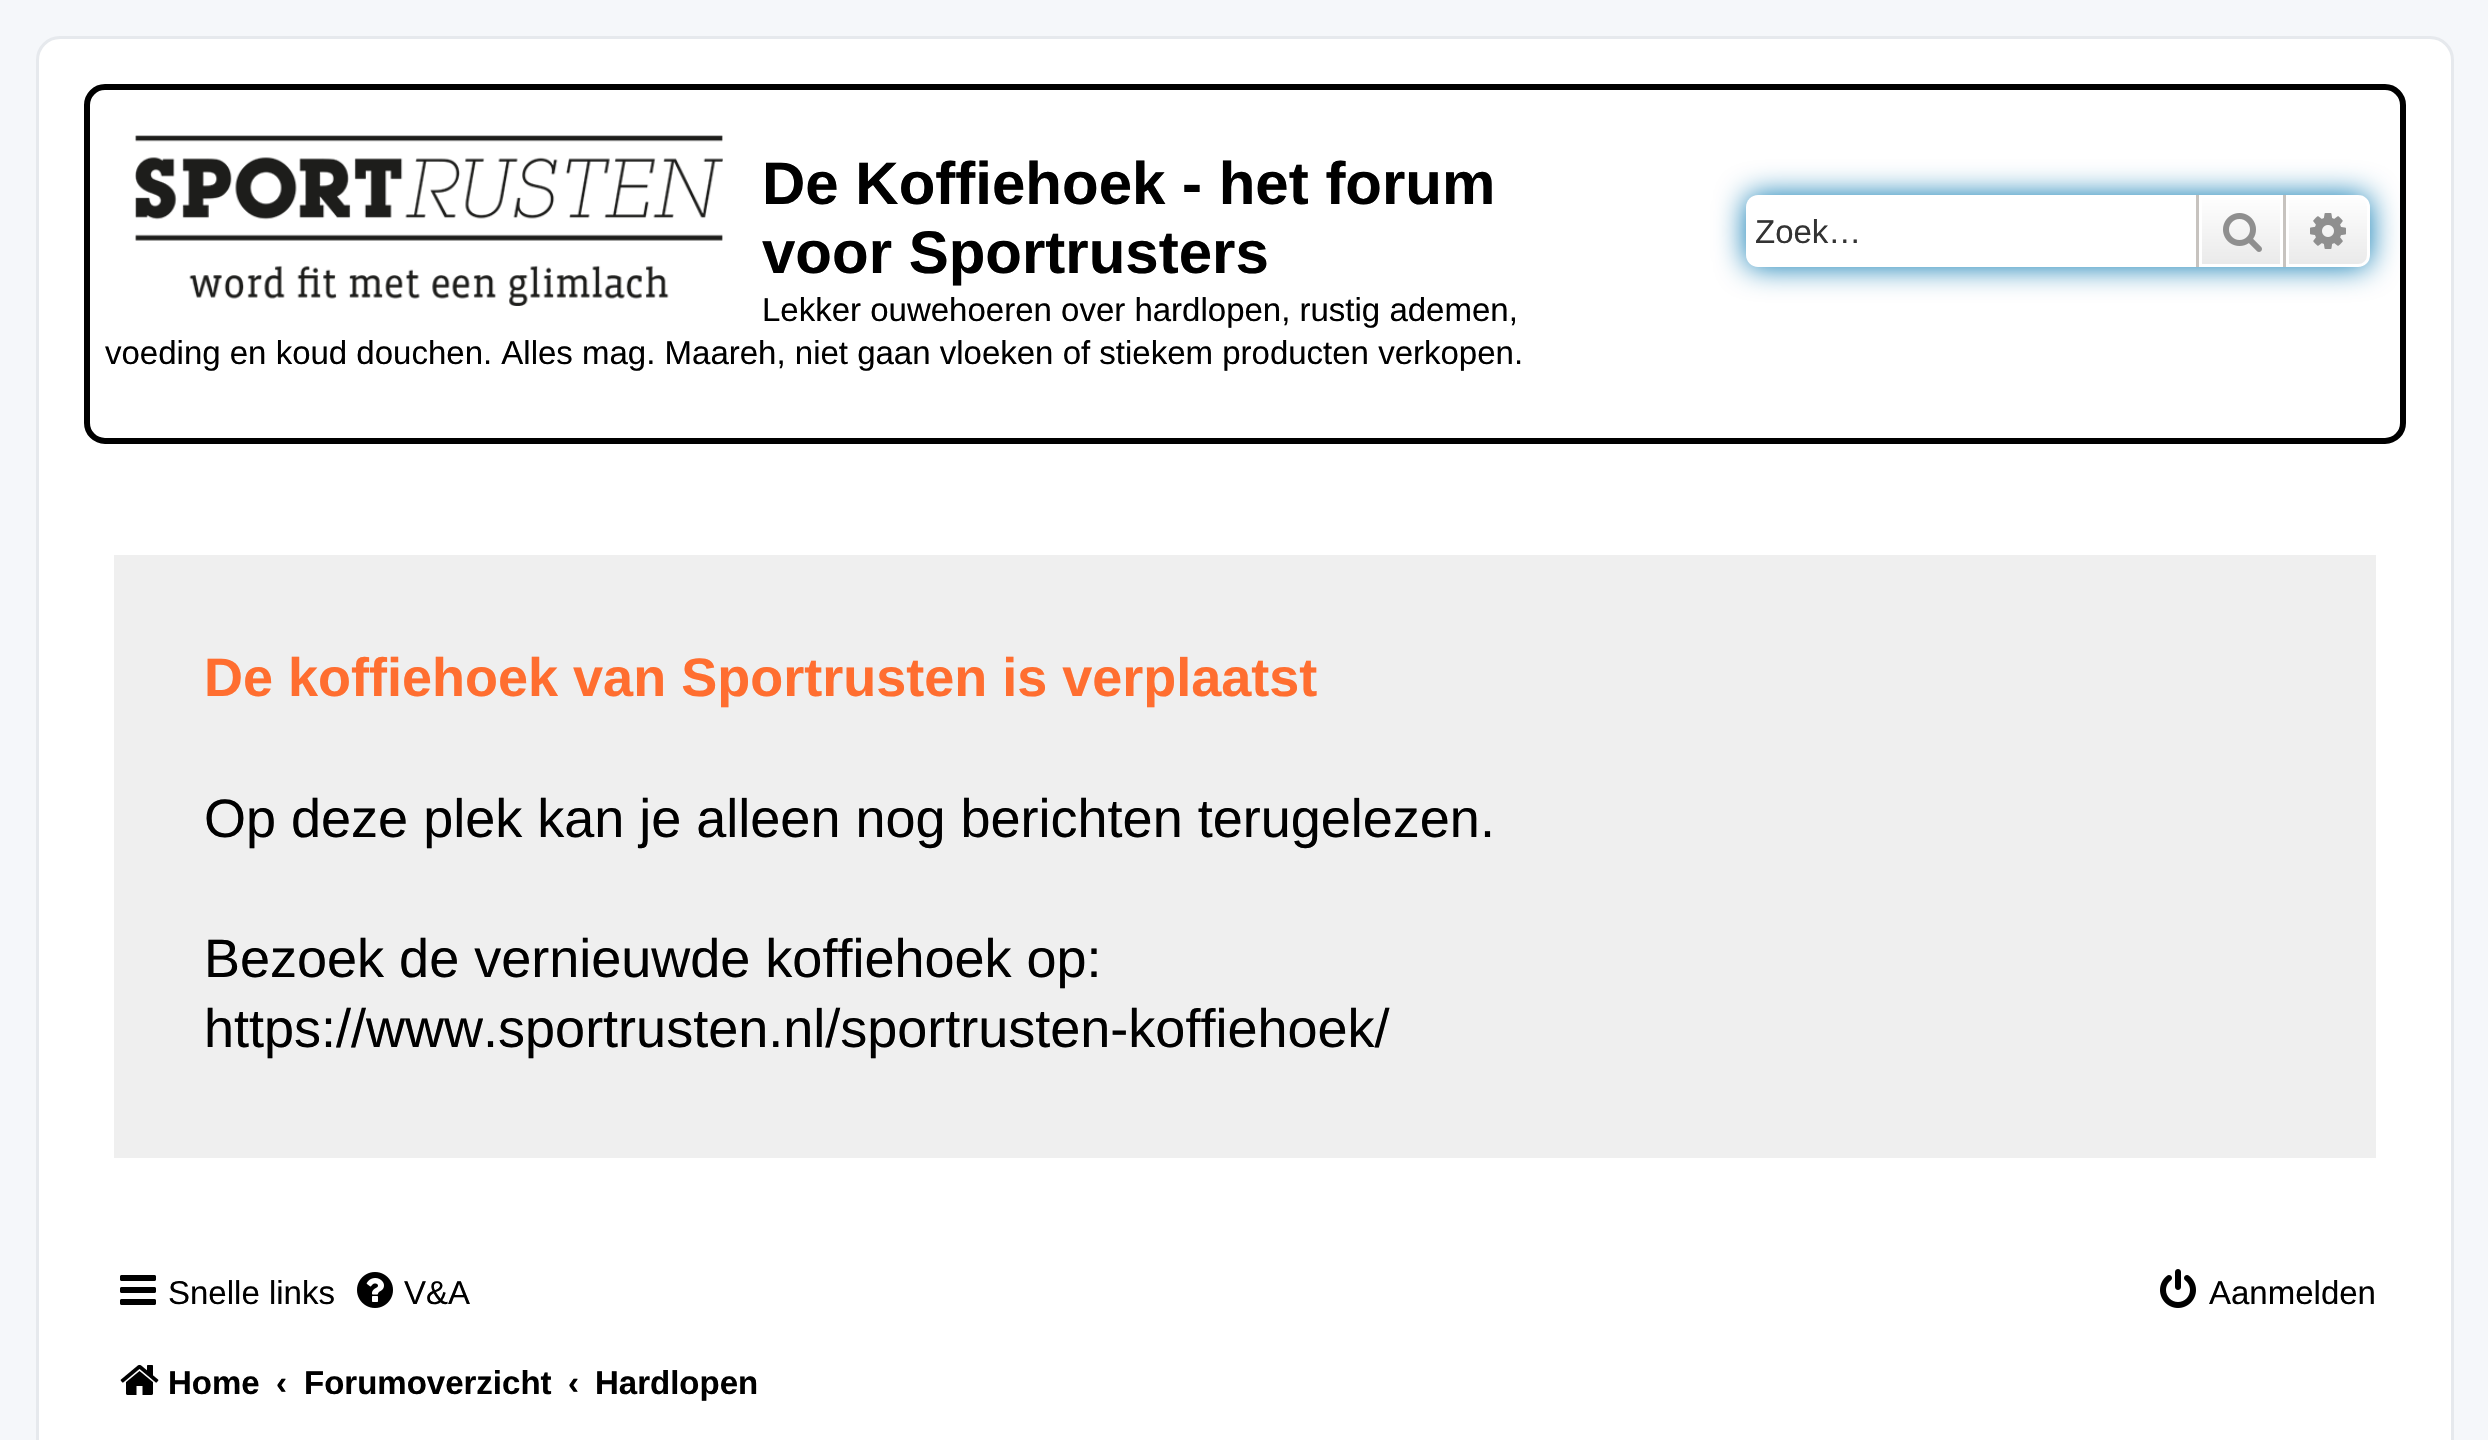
void draw(SkCanvas* canvas) {
  SkPaint paint;
  paint.setAntiAlias(true);
  auto face = [&](const char* family, int weight, float size, bool italic = false) {
    SkFontStyle style(weight, SkFontStyle::kNormal_Width,
      italic ? SkFontStyle::kItalic_Slant : SkFontStyle::kUpright_Slant);
    SkFont result(fontMgr->matchFamilyStyle(family, style), size);
    result.setSubpixel(true);
    return result;
  };
  auto paste = [&](const char* path, float x, float y, float w, float h) {
    auto image = SkImages::DeferredFromEncodedData(SkData::MakeFromFileName(path));
    canvas->drawImageRect(image, SkRect::MakeXYWH(x, y, w, h), SkSamplingOptions());
  };
  auto shape = [&](const char* data, bool evenOdd = false) {
    SkPath result = *SkParsePath::FromSVGString(data);
    if (evenOdd) result.setFillType(SkPathFillType::kEvenOdd);
    return result;
  };
  canvas->clear(0xfff5f7fa);
  paint.setColor(0xffffffff);
  canvas->drawRoundRect(SkRect::MakeXYWH(37.5f, 37.5f, 2415, 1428), 22.5f, 22.5f, paint);
  paint.setStroke(true);
  paint.setStrokeWidth(3);
  paint.setColor(0xffe6e9ed);
  canvas->drawRoundRect(SkRect::MakeXYWH(37.5f, 37.5f, 2415, 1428), 22.5f, 22.5f, paint);
  paint.setStrokeWidth(6);
  paint.setColor(0xff000000);
  canvas->drawRoundRect(SkRect::MakeXYWH(87, 87, 2316, 354), 18, 18, paint);
  paste("img/1.png", 135, 135, 588, 171);
  paint.setStroke(false);
  paint.setColor(0xff0075b0);
  paint.setMaskFilter(SkMaskFilter::MakeBlur(kNormal_SkBlurStyle, 15));
  canvas->drawRoundRect(SkRect::MakeXYWH(1746, 195, 624, 72), 12, 12, paint);
  paint.setMaskFilter(nullptr);
  paint.setColor(0xffffffff);
  canvas->drawPath(shape("M1758 195H2196V267H1758C1751.5 267 1746 261.5 1746 255V207C1746 200.5 1751.5 195 1758 195Z"), paint);
  {
    const SkColor colors[] = {0xffffffff, 0xffe9e9e9};
    const float stops[] = {0, 1};
    const SkPoint ends[] = {{2241, 195}, {2241, 267}};
    paint.setShader(SkGradientShader::MakeLinear(ends, colors, stops, 2, SkTileMode::kClamp));
    paint.setAlpha(255);
  }
  canvas->drawRect(SkRect::MakeXYWH(2202, 198, 78, 66), paint);
  paint.setStroke(true);
  paint.setStrokeWidth(3);
  paint.setShader(nullptr);
  paint.setColor(0xffffffff);
  canvas->drawRect(SkRect::MakeXYWH(2200.5f, 196.5f, 81, 69), paint);
  paint.setStroke(false);
  paint.setColor(0xffc7c3bf);
  canvas->drawRect(SkRect::MakeXYWH(2283, 195, 3, 72), paint);
  canvas->drawRect(SkRect::MakeXYWH(2196, 195, 3, 72), paint);
  paste("img/2.png", 2223, 213, 39, 39);
  {
    const SkColor colors[] = {0xffffffff, 0xffe9e9e9};
    const float stops[] = {0, 1};
    const SkPoint ends[] = {{2328, 195}, {2328, 267}};
    paint.setShader(SkGradientShader::MakeLinear(ends, colors, stops, 2, SkTileMode::kClamp));
    paint.setAlpha(255);
  }
  canvas->drawPath(shape("M2287.5 196.5H2358C2364 196.5 2368.5 201 2368.5 207V255C2368.5 261 2364 265.5 2358 265.5H2287.5Z"), paint);
  paint.setStroke(true);
  paint.setShader(nullptr);
  paint.setColor(0xffffffff);
  canvas->drawPath(shape("M2287.5 196.5H2358C2364 196.5 2368.5 201 2368.5 207V255C2368.5 261 2364 265.5 2358 265.5H2287.5Z"), paint);
  paste("img/3.png", 2310, 213, 36, 36);
  paint.setStroke(false);
  paint.setColor(0xffefefef);
  canvas->drawRect(SkRect::MakeXYWH(114, 555, 2262, 603), paint);
  paste("img/4.png", 120, 1275, 36, 30);
  paste("img/5.png", 357, 1272, 36, 36);
  paste("img/6.png", 2160, 1269, 36, 39);
  paste("img/7.png", 120, 1364, 39, 31);
  auto f0 = face("Liberation Sans", 700, 60);
  paint.setColor(0xff000000);
  canvas->drawString("De Koffiehoek - het forum", 762, 204, f0, paint);
  canvas->drawString("voor Sportrusters", 762, 273, f0, paint);
  auto f1 = face("Liberation Sans", 400, 33);
  canvas->drawString("Lekker ouwehoeren over hardlopen, rustig ademen,", 762, 321, f1, paint);
  canvas->drawString("voeding en koud douchen. Alles mag. Maareh, niet gaan vloeken of stiekem producten verkopen.", 105, 364, f1, paint);
  paint.setColor(0xff333333);
  canvas->drawString("Zoek…", 1755, 243, f1, paint);
  auto f2 = face("Liberation Sans", 700, 54);
  paint.setColor(0xffff6e30);
  canvas->drawString("De koffiehoek van Sportrusten is verplaatst", 204, 696, f2, paint);
  auto f3 = face("Liberation Sans", 400, 54);
  paint.setColor(0xff000000);
  {
    const struct { const char* s; float x, y; } items[] = {
      {"Op deze plek kan je alleen nog berichten terugelezen.", 204, 837},
      {"Bezoek de vernieuwde koffiehoek op:", 204, 977},
      {"https://www.sportrusten.nl/sportrusten-koffiehoek/", 204, 1047},
    };
    for (auto [s, x, y] : items) {
      canvas->drawString(s, x, y, f3, paint);
    }
  }
  {
    const struct { const char* s; float x, y; } items[] = {
      {"Snelle links", 168, 1304},
      {"V&A", 404, 1304},
      {"Aanmelden", 2209, 1304},
    };
    for (auto [s, x, y] : items) {
      canvas->drawString(s, x, y, f1, paint);
    }
  }
  auto f4 = face("Liberation Sans", 700, 33);
  {
    const struct { const char* s; float x, y; } items[] = {
      {"Home", 168, 1394},
      {"‹", 276, 1394},
      {"Forumoverzicht", 304, 1394},
      {"‹", 568, 1394},
      {"Hardlopen", 595, 1394},
    };
    for (auto [s, x, y] : items) {
      canvas->drawString(s, x, y, f4, paint);
    }
  }
}
